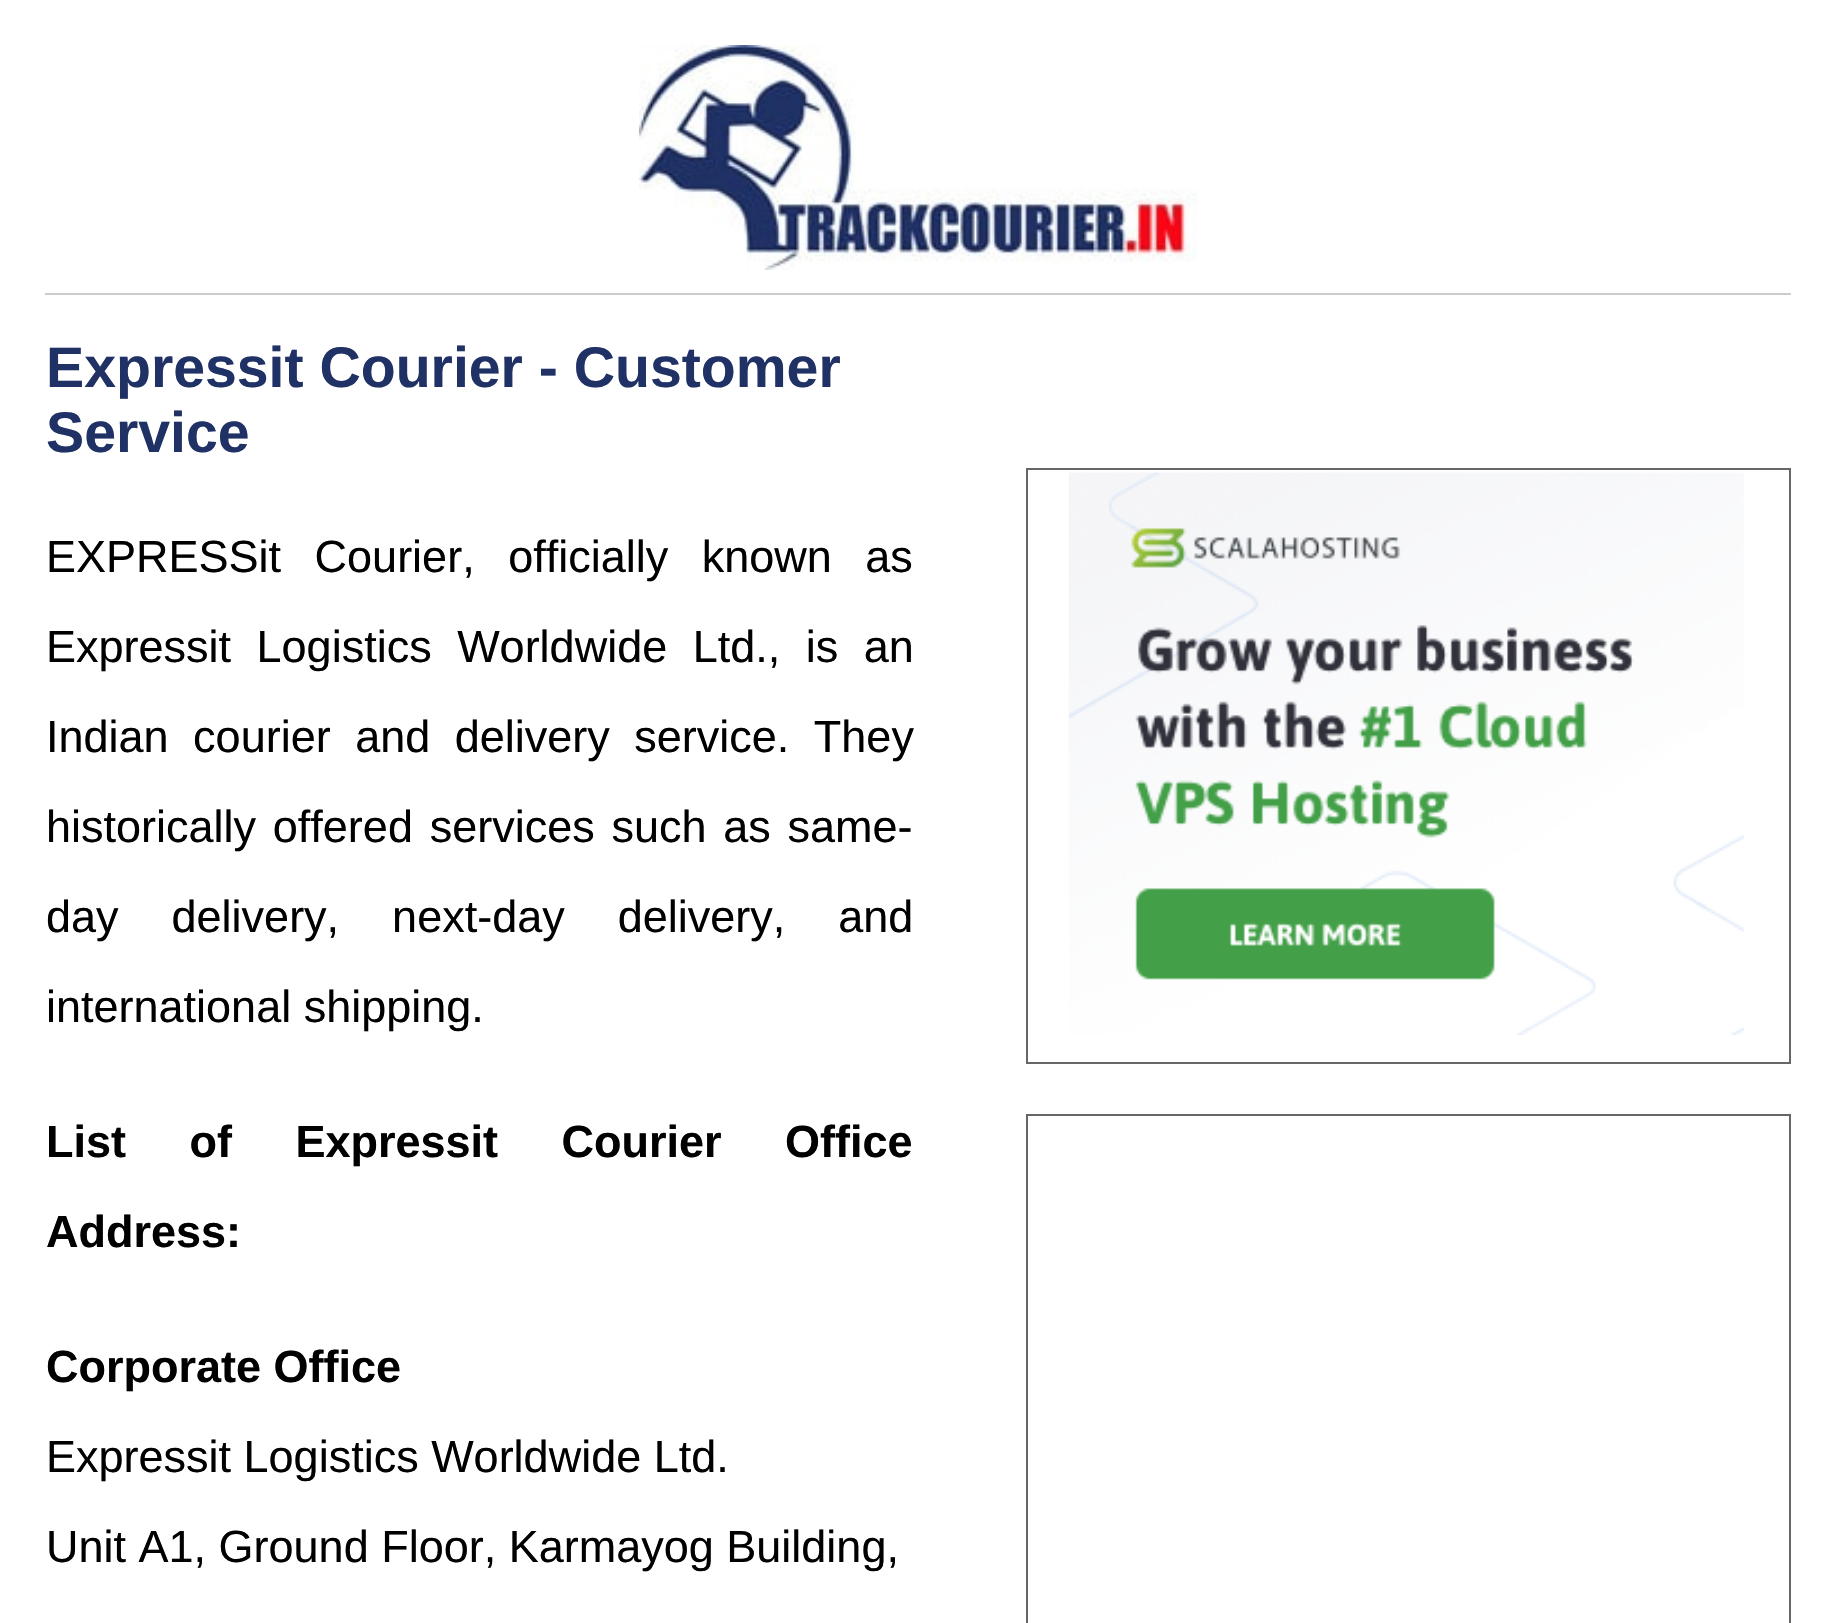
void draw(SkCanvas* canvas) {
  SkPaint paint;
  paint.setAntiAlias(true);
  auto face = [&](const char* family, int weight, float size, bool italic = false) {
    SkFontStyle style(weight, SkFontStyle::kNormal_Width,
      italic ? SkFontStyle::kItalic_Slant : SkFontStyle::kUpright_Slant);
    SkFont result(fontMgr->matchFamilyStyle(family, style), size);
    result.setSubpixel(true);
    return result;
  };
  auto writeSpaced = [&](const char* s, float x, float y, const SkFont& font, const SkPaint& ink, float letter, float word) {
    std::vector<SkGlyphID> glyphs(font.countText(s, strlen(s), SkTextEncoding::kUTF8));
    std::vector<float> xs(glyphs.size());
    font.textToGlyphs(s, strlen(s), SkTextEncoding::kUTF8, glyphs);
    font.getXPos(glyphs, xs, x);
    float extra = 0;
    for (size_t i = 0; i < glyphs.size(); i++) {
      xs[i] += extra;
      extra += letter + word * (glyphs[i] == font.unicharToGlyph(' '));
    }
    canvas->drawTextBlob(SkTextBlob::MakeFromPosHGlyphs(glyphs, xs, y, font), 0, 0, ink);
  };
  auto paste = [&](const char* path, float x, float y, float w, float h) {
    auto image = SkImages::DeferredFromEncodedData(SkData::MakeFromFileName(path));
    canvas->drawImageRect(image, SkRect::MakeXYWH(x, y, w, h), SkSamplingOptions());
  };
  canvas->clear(0xffffffff);
  paint.setColor(0xffcccccc);
  canvas->drawRect(SkRect::MakeXYWH(45, 293, 1746, 2), paint);
  paste("img/1.png", 639, 45, 558, 225);
  paint.setStroke(true);
  paint.setStrokeWidth(2);
  paint.setColor(0xff666666);
  canvas->drawRect(SkRect::MakeXYWH(1027, 469, 763, 594), paint);
  paste("img/2.png", 1068, 472, 676, 563);
  canvas->drawRect(SkRect::MakeXYWH(1027, 1115, 763, 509), paint);
  auto f0 = face("Liberation Sans", 700, 57.2f);
  paint.setStroke(false);
  paint.setColor(0xff203165);
  canvas->drawString("Expressit Courier - Customer", 46, 387, f0, paint);
  canvas->drawString("Service", 46, 452, f0, paint);
  auto f1 = face("Liberation Sans", 400, 45);
  paint.setColor(0xff000000);
  writeSpaced("EXPRESSit Courier, officially known as", 46, 572, f1, paint, 0, 21);
  writeSpaced("Expressit Logistics Worldwide Ltd., is an", 46, 662, f1, paint, 0, 13);
  writeSpaced("Indian courier and delivery service. They", 46, 752, f1, paint, 0, 12);
  writeSpaced("historically offered services such as same-", 46, 842, f1, paint, 0, 4.25f);
  writeSpaced("day delivery, next-day delivery, and", 46, 932, f1, paint, 0, 40.5f);
  canvas->drawString("international shipping.", 46, 1022, f1, paint);
  auto f2 = face("Liberation Sans", 700, 45);
  writeSpaced("List of Expressit Courier Office", 46, 1157, f2, paint, 0, 51);
  canvas->drawString("Address:", 46, 1247, f2, paint);
  canvas->drawString("Corporate Office", 46, 1382, f2, paint);
  canvas->drawString("Expressit Logistics Worldwide Ltd.", 46, 1472, f1, paint);
  canvas->drawString("Unit A1, Ground Floor, Karmayog Building,", 46, 1562, f1, paint);
}
